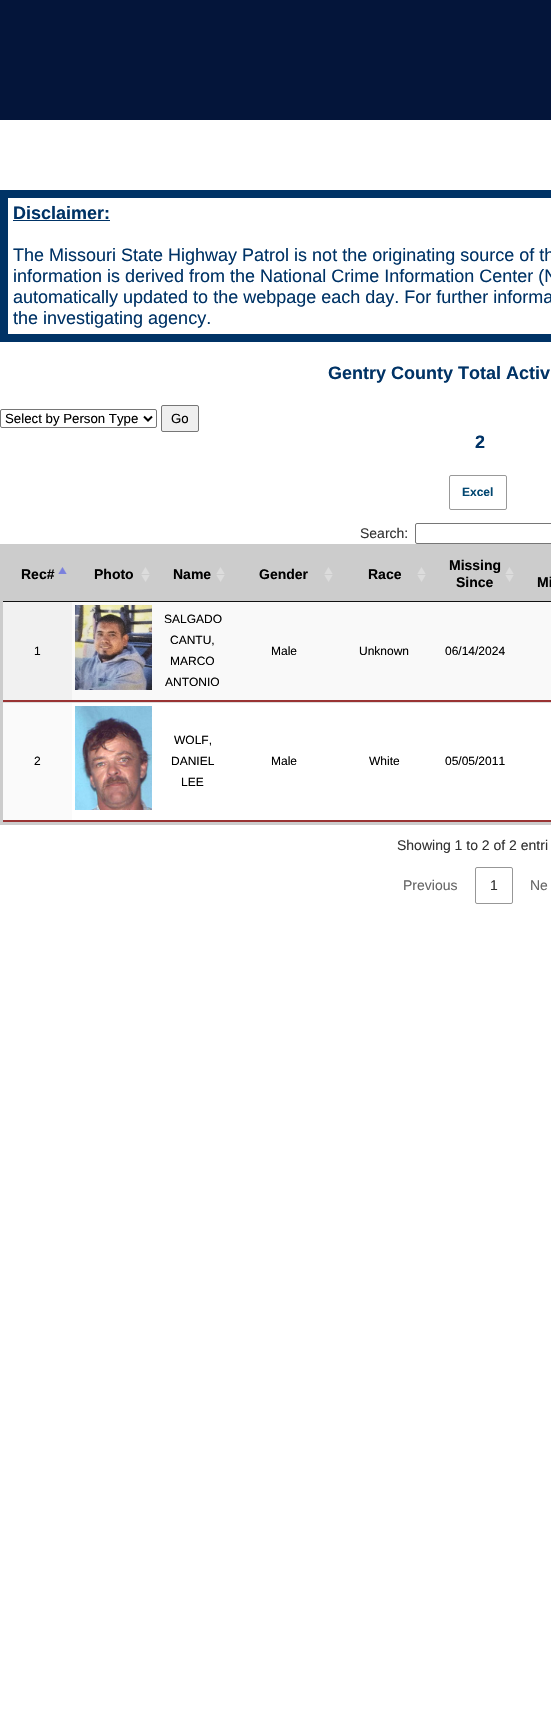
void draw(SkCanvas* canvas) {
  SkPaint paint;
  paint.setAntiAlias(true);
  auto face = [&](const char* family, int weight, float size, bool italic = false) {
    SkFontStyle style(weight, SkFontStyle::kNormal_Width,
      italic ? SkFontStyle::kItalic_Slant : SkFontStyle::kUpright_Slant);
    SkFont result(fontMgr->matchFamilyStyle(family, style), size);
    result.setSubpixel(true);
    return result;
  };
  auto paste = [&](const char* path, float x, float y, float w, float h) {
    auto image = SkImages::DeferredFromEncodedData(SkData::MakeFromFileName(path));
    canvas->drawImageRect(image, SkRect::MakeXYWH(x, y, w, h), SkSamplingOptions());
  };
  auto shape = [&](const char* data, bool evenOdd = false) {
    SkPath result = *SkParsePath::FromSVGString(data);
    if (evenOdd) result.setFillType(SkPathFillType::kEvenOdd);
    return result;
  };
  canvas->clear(0xffffffff);
  paint.setColor(0xff04153a);
  canvas->drawRect(SkRect::MakeXYWH(0, 0, 551, 120), paint);
  paint.setStroke(true);
  paint.setStrokeWidth(8);
  paint.setColor(0xff003366);
  canvas->drawRect(SkRect::MakeXYWH(4, 194, 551, 144), paint);
  paint.setStroke(false);
  canvas->drawRect(SkRect::MakeXYWH(13, 220, 97, 1), paint);
  paint.setStroke(true);
  paint.setStrokeWidth(1);
  paint.setColor(0xff767676);
  canvas->drawRoundRect(SkRect::MakeXYWH(0.5f, 409.5f, 156, 18), 1.5f, 1.5f, paint);
  paint.setStrokeWidth(2);
  paint.setColor(0xff000000);
  canvas->drawPath(shape("M144 416.5L148 420.5L152 416.5"), paint);
  paint.setStroke(false);
  paint.setColor(0xffefefef);
  canvas->drawRoundRect(SkRect::MakeXYWH(161.5f, 405.5f, 37, 26), 1.5f, 1.5f, paint);
  paint.setStroke(true);
  paint.setStrokeWidth(1);
  paint.setColor(0xff767676);
  canvas->drawRoundRect(SkRect::MakeXYWH(161.5f, 405.5f, 37, 26), 1.5f, 1.5f, paint);
  paint.setColor(0xff999999);
  canvas->drawRoundRect(SkRect::MakeXYWH(449.5f, 475.5f, 57, 34), 1.5f, 1.5f, paint);
  paint.setColor(0xff767676);
  canvas->drawRoundRect(SkRect::MakeXYWH(415.5f, 523.5f, 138, 20), 1.5f, 1.5f, paint);
  paint.setStrokeWidth(3);
  paint.setColor(0xffcccccc);
  canvas->drawRect(SkRect::MakeXYWH(1.5f, 545.5f, 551, 278), paint);
  paint.setStroke(false);
  canvas->drawRect(SkRect::MakeXYWH(3, 547, 548, 54), paint);
  paste("img/1.png", 58, 567, 9, 7);
  paint.setColor(0xff111111);
  canvas->drawRect(SkRect::MakeXYWH(3, 601, 548, 1), paint);
  paste("img/2.png", 141, 567, 9, 15);
  paste("img/2.png", 216, 567, 9, 15);
  paste("img/2.png", 324, 567, 9, 15);
  paste("img/2.png", 417, 567, 9, 15);
  paste("img/2.png", 505, 567, 9, 15);
  {
    const struct { float x, y, w, h; SkColor color; } items[] = {
      {72, 602, 479, 98, 0xfff9f9f9},
      {3, 602, 69, 98, 0xfff1f1f1},
      {3, 700, 548, 2, 0xff993333},
    };
    for (auto [x, y, w, h, color] : items) {
      paint.setColor(color);
      canvas->drawRect(SkRect::MakeXYWH(x, y, w, h), paint);
    }
  }
  paste("img/3.png", 75, 605, 77, 85);
  {
    const struct { float x, y, w, h; SkColor color; } items[] = {
      {3, 703, 69, 117, 0xfffafafa},
      {3, 702, 548, 1, 0xffdddddd},
      {3, 820, 548, 2, 0xff993333},
    };
    for (auto [x, y, w, h, color] : items) {
      paint.setColor(color);
      canvas->drawRect(SkRect::MakeXYWH(x, y, w, h), paint);
    }
  }
  paste("img/4.png", 75, 706, 77, 104);
  paint.setStroke(true);
  paint.setStrokeWidth(1);
  paint.setColor(0xff979797);
  canvas->drawRoundRect(SkRect::MakeXYWH(475.5f, 867.5f, 37, 36), 1.5f, 1.5f, paint);
  auto f0 = face("Liberation Sans", 700, 18);
  paint.setStroke(false);
  paint.setColor(0xff003366);
  canvas->drawString("Disclaimer:", 13, 219, f0, paint);
  auto f1 = face("Liberation Sans", 400, 18);
  {
    const struct { const char* s; float x, y; } items[] = {
      {"The Missouri State Highway Patrol is not the originating source of th", 13, 261},
      {"information is derived from the National Crime Information Center (N", 13, 282},
      {"automatically updated to the webpage each day. For further informa", 13, 303},
      {"the investigating agency.", 13, 324},
    };
    for (auto [s, x, y] : items) {
      canvas->drawString(s, x, y, f1, paint);
    }
  }
  canvas->drawString("Gentry County Total Activ", 328, 379, f0, paint);
  auto f2 = face("Liberation Sans", 400, 13.25f);
  paint.setColor(0xff000000);
  canvas->drawString("Select by Person Type", 5, 423, f2, paint);
  canvas->drawString("Go", 171, 423, f2, paint);
  paint.setColor(0xff003366);
  canvas->drawString("2", 475, 448, f0, paint);
  auto f3 = face("Liberation Sans", 700, 12);
  paint.setColor(0xff024771);
  canvas->drawString("Excel", 462, 496, f3, paint);
  auto f4 = face("Liberation Sans", 400, 14);
  paint.setColor(0xff333333);
  canvas->drawString("Search:", 360, 538, f4, paint);
  auto f5 = face("Liberation Sans", 700, 14);
  paint.setColor(0xff000000);
  {
    const struct { const char* s; float x, y; } items[] = {
      {"Rec#", 21, 579},
      {"Photo", 94, 579},
      {"Name", 173, 579},
      {"Gender", 259, 579},
      {"Race", 368, 579},
      {"Missing", 449, 570},
      {"Since", 456, 587},
      {"Mi", 537, 587},
    };
    for (auto [s, x, y] : items) {
      canvas->drawString(s, x, y, f5, paint);
    }
  }
  auto f6 = face("Liberation Sans", 400, 12);
  {
    const struct { const char* s; float x, y; } items[] = {
      {"1", 34, 655},
      {"SALGADO", 164, 623},
      {"CANTU,", 170, 644},
      {"MARCO", 170, 665},
      {"ANTONIO", 165, 686},
      {"Male", 271, 655},
      {"Unknown", 359, 655},
      {"06/14/2024", 445, 655},
      {"2", 34, 765},
      {"WOLF,", 174, 744},
      {"DANIEL", 171, 765},
      {"LEE", 181, 786},
      {"Male", 271, 765},
      {"White", 369, 765},
      {"05/05/2011", 445, 765},
    };
    for (auto [s, x, y] : items) {
      canvas->drawString(s, x, y, f6, paint);
    }
  }
  paint.setColor(0xff333333);
  canvas->drawString("Showing 1 to 2 of 2 entri", 397, 850, f4, paint);
  paint.setColor(0xff666666);
  canvas->drawString("Previous", 403, 890, f4, paint);
  paint.setColor(0xff333333);
  canvas->drawString("1", 490, 890, f4, paint);
  paint.setColor(0xff666666);
  canvas->drawString("Ne", 530, 890, f4, paint);
}
